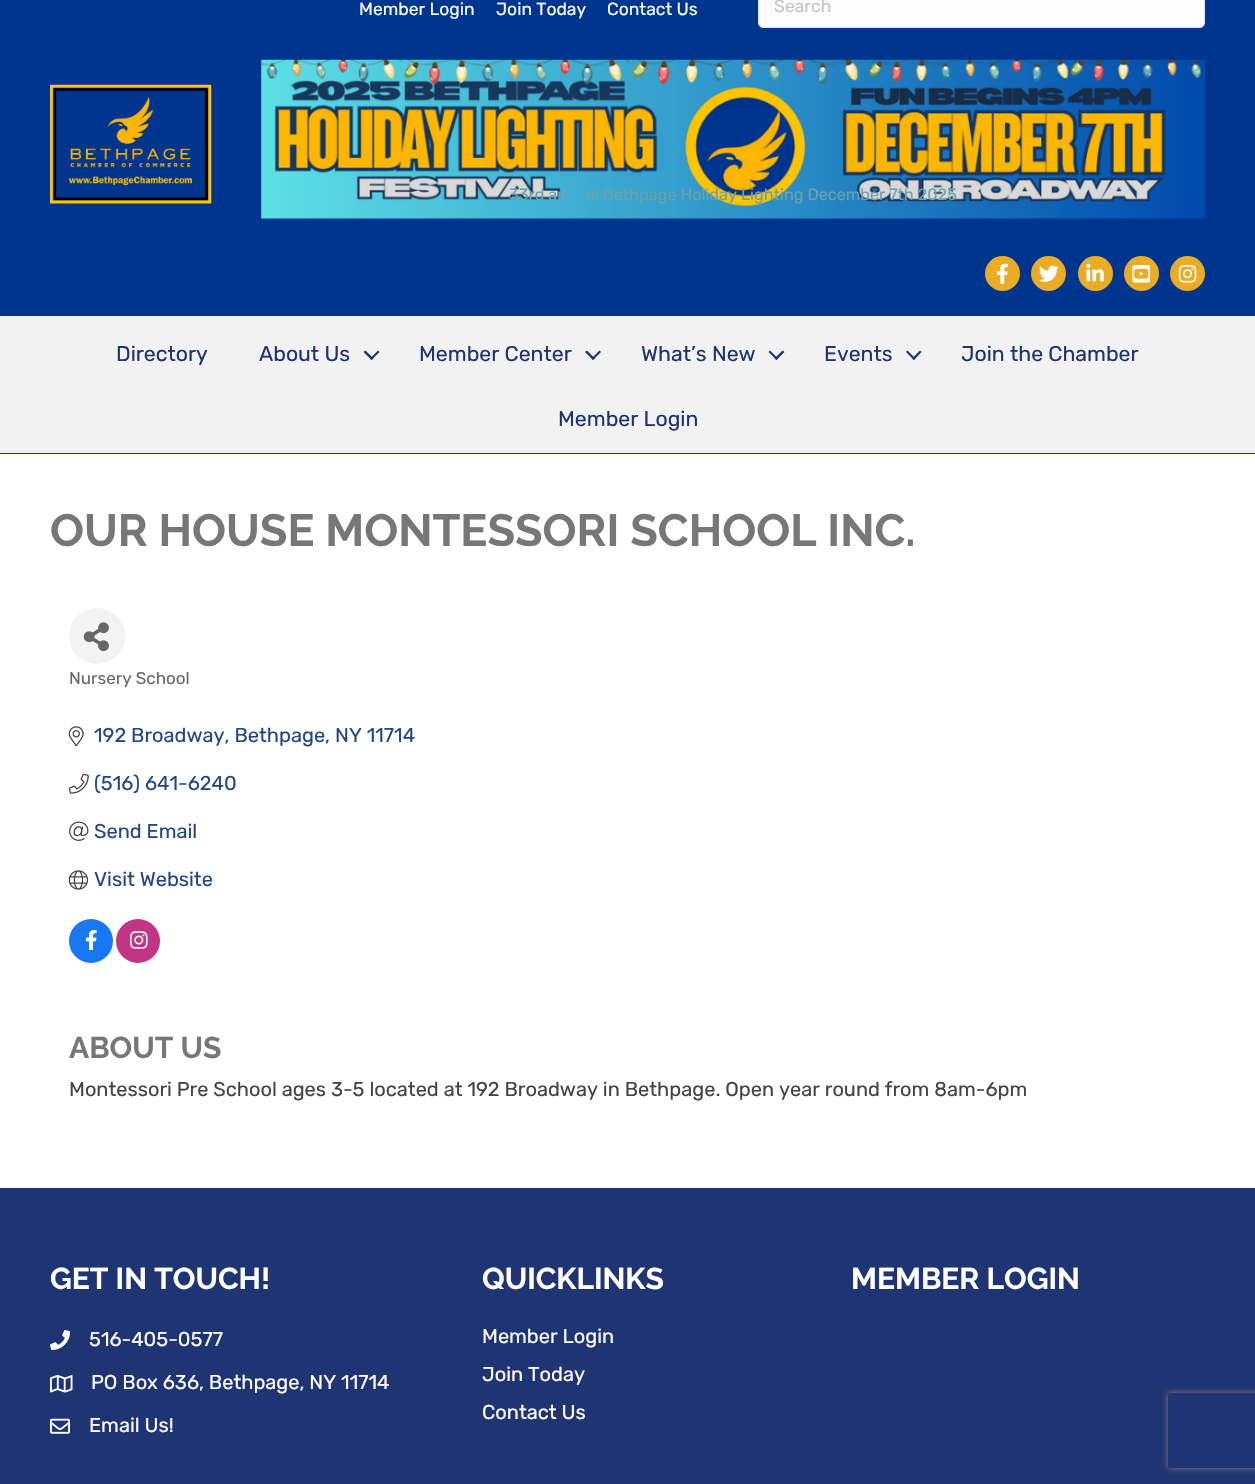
void draw(SkCanvas* canvas) {
  SkPaint paint;
  paint.setAntiAlias(true);
  auto face = [&](const char* family, int weight, float size, bool italic = false) {
    SkFontStyle style(weight, SkFontStyle::kNormal_Width,
      italic ? SkFontStyle::kItalic_Slant : SkFontStyle::kUpright_Slant);
    SkFont result(fontMgr->matchFamilyStyle(family, style), size);
    result.setSubpixel(true);
    return result;
  };
  auto paste = [&](const char* path, float x, float y, float w, float h) {
    auto image = SkImages::DeferredFromEncodedData(SkData::MakeFromFileName(path));
    canvas->drawImageRect(image, SkRect::MakeXYWH(x, y, w, h), SkSamplingOptions());
  };
  auto shape = [&](const char* data, bool evenOdd = false) {
    SkPath result = *SkParsePath::FromSVGString(data);
    if (evenOdd) result.setFillType(SkPathFillType::kEvenOdd);
    return result;
  };
  canvas->clear(0xfff2f2f2);
  paint.setColor(0xff00358f);
  canvas->drawRect(SkRect::MakeXYWH(0, 0, 1255, 316), paint);
  paste("img/1.png", 50, 84, 162, 120);
  paint.setColor(0xfffcfcfc);
  canvas->drawRoundRect(SkRect::MakeXYWH(758.5f, -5.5f, 446, 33), 4.5f, 4.5f, paint);
  paint.setStroke(true);
  paint.setStrokeWidth(1);
  paint.setColor(0xffe6e6e6);
  canvas->drawRoundRect(SkRect::MakeXYWH(758.5f, -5.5f, 446, 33), 4.5f, 4.5f, paint);
  paste("img/2.png", 261, 59, 944, 160);
  paint.setStroke(false);
  paint.setColor(0xffeaac25);
  canvas->drawCircle(1002.5f, 273.5f, 17.5f, paint);
  paste("img/3.png", 997, 263, 11, 21);
  canvas->drawCircle(1048.5f, 273.5f, 17.5f, paint);
  paste("img/4.png", 1039, 265, 20, 17);
  canvas->drawCircle(1095.5f, 273.5f, 17.5f, paint);
  paste("img/5.png", 1086, 263, 18, 19);
  canvas->drawCircle(1141.5f, 273.5f, 17.5f, paint);
  paste("img/6.png", 1132, 265, 18, 18);
  canvas->drawCircle(1187.5f, 273.5f, 17.5f, paint);
  paste("img/7.png", 1178, 265, 19, 18);
  paint.setColor(0xff1f3473);
  canvas->drawRect(SkRect::MakeXYWH(0, 453, 1255, 1), paint);
  canvas->drawPath(shape("M378 350.5L379.5 352L371.5 360L370 358.5Z"), paint);
  canvas->drawPath(shape("M365.5 350.5L373.5 358.5L371.5 360L363.5 352Z"), paint);
  canvas->drawPath(shape("M599.5 350.5L601 352L593 360L591.5 358.5Z"), paint);
  canvas->drawPath(shape("M587 350.5L595 358.5L593 360L585 352Z"), paint);
  canvas->drawPath(shape("M782.5 350.5L784.5 352L776.5 360L774.5 358.5Z"), paint);
  canvas->drawPath(shape("M770 350.5L778 358.5L776.5 360L768.5 352Z"), paint);
  canvas->drawPath(shape("M920 350.5L921.5 352L914 360L912 358.5Z"), paint);
  canvas->drawPath(shape("M907.5 350.5L915.5 358.5L914 360L906 352Z"), paint);
  paint.setColor(0xffffffff);
  canvas->drawRect(SkRect::MakeXYWH(0, 454, 1255, 734), paint);
  paint.setColor(0xfff3f3f3);
  canvas->drawCircle(97, 636, 28, paint);
  paste("img/8.png", 83, 622, 26, 30);
  paste("img/9.png", 68, 726, 16, 21);
  paste("img/10.png", 68, 773, 21, 21);
  paste("img/11.png", 69, 821, 20, 20);
  paste("img/12.png", 68, 870, 21, 20);
  paint.setColor(0xff1877f2);
  canvas->drawCircle(91, 941, 22, paint);
  paste("img/13.png", 85, 930, 12, 20);
  paint.setColor(0xffc13584);
  canvas->drawCircle(138, 941, 22, paint);
  paste("img/14.png", 130, 931, 18, 18);
  paint.setColor(0xff1f3473);
  canvas->drawRect(SkRect::MakeXYWH(0, 1188, 1255, 296), paint);
  paste("img/15.png", 50, 1330, 20, 20);
  paste("img/16.png", 50, 1375, 23, 18);
  paste("img/17.png", 50, 1418, 20, 16);
  canvas->save();
  canvas->clipPath(shape("M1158 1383H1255V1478H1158ZM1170.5 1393H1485.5C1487 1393 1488 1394 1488 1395.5V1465.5C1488 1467 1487 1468 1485.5 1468H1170.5C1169 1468 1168 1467 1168 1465.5V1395.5C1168 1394 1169 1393 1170.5 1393Z", true), true);
  paint.setColor(0xff808080);
  paint.setMaskFilter(SkMaskFilter::MakeBlur(kNormal_SkBlurStyle, 3));
  canvas->drawRoundRect(SkRect::MakeXYWH(1168, 1393, 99, 75), 2.5f, 2.5f, paint);
  paint.setMaskFilter(nullptr);
  canvas->restore();
  auto f0 = face("Rubik", 400, 17.5f);
  paint.setColor(0xffffffff);
  {
    const struct { const char* s; float x, y; } items[] = {
      {"Member Login", 359, 15},
      {"Join Today", 496, 15},
      {"Contact Us", 607, 15},
    };
    for (auto [s, x, y] : items) {
      canvas->drawString(s, x, y, f0, paint);
    }
  }
  paint.setColor(0xffc7c7c7);
  canvas->drawString("Search", 774, 12, f0, paint);
  auto f1 = face("Rubik", 400, 16.25f);
  paint.setColor(0xff6ca2aa);
  canvas->drawString("33rd an", 509, 200, f1, paint);
  canvas->drawString("al Bethpage Holiday Lighting December 7th 2025", 586, 200, f1, paint);
  auto f2 = face("Rubik", 400, 21.25f);
  paint.setColor(0xff1f3473);
  {
    const struct { const char* s; float x, y; } items[] = {
      {"Directory", 116, 361},
      {"About Us", 259, 361},
      {"Member Center", 419, 361},
      {"What’s New", 641, 361},
      {"Events", 824, 361},
      {"Join the Chamber", 961, 361},
      {"Member Login", 558, 426},
    };
    for (auto [s, x, y] : items) {
      canvas->drawString(s, x, y, f2, paint);
    }
  }
  auto f3 = face("Raleway", 100, 45);
  paint.setColor(0xff777777);
  canvas->drawString("OUR HOUSE MONTESSORI SCHOOL INC.", 50, 546, f3, paint);
  auto f4 = face("Rubik", 400, 17);
  paint.setColor(0xff696969);
  canvas->drawString("Nursery School", 69, 684, f4, paint);
  auto f5 = face("Rubik", 400, 20);
  paint.setColor(0xff224884);
  {
    const struct { const char* s; float x, y; } items[] = {
      {"192 Broadway, Bethpage, NY 11714", 94, 742},
      {"(516) 641-6240", 94, 790},
      {"Send Email", 94, 838},
      {"Visit Website", 94, 886},
    };
    for (auto [s, x, y] : items) {
      canvas->drawString(s, x, y, f5, paint);
    }
  }
  auto f6 = face("Raleway", 100, 30);
  paint.setColor(0xff777777);
  canvas->drawString("ABOUT US", 69, 1058, f6, paint);
  paint.setColor(0xff444444);
  canvas->drawString("Montessori Pre School ages 3-5 located at 192 Broadway in Bethpage. Open year round from 8am-6pm", 69, 1096, f5, paint);
  paint.setColor(0xffffffff);
  canvas->drawString("GET IN TOUCH!", 50, 1289, f6, paint);
  {
    const struct { const char* s; float x, y; } items[] = {
      {"516-405-0577", 89, 1346},
      {"PO Box 636, Bethpage, NY 11714", 91, 1389},
      {"Email Us!", 89, 1432},
    };
    for (auto [s, x, y] : items) {
      canvas->drawString(s, x, y, f5, paint);
    }
  }
  canvas->drawString("QUICKLINKS", 482, 1289, f6, paint);
  {
    const struct { const char* s; float x, y; } items[] = {
      {"Member Login", 482, 1343},
      {"Join Today", 482, 1381},
      {"Contact Us", 482, 1419},
    };
    for (auto [s, x, y] : items) {
      canvas->drawString(s, x, y, f5, paint);
    }
  }
  canvas->drawString("MEMBER LOGIN", 851, 1289, f6, paint);
}
